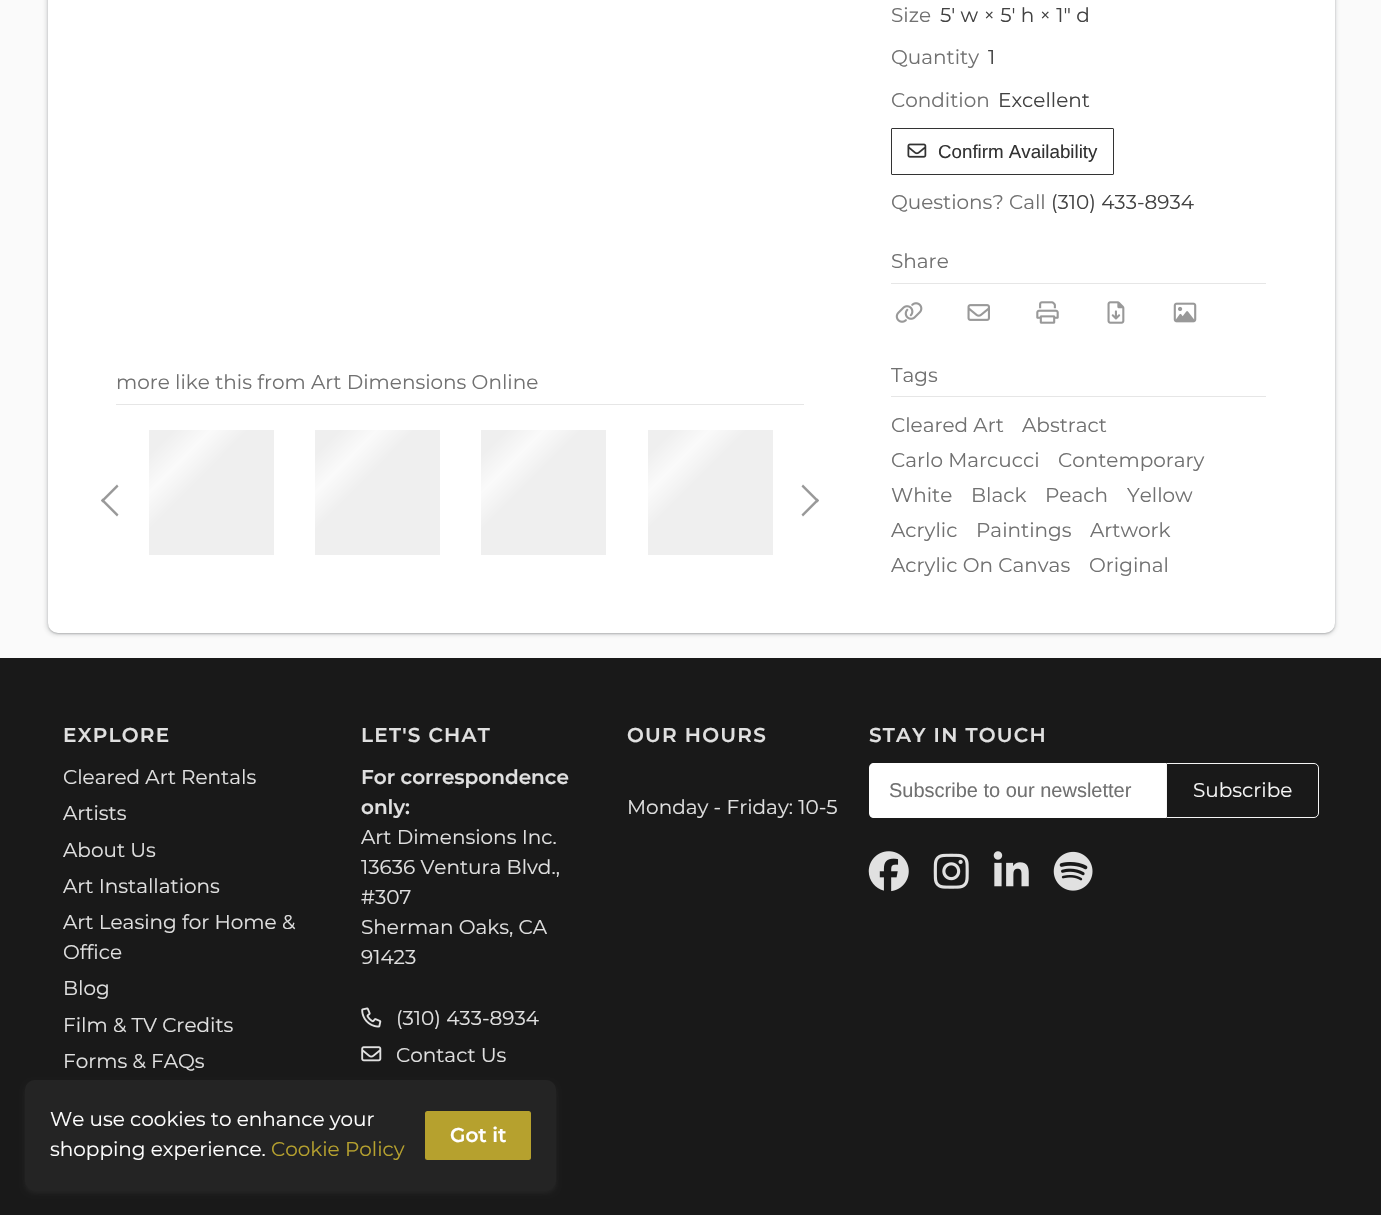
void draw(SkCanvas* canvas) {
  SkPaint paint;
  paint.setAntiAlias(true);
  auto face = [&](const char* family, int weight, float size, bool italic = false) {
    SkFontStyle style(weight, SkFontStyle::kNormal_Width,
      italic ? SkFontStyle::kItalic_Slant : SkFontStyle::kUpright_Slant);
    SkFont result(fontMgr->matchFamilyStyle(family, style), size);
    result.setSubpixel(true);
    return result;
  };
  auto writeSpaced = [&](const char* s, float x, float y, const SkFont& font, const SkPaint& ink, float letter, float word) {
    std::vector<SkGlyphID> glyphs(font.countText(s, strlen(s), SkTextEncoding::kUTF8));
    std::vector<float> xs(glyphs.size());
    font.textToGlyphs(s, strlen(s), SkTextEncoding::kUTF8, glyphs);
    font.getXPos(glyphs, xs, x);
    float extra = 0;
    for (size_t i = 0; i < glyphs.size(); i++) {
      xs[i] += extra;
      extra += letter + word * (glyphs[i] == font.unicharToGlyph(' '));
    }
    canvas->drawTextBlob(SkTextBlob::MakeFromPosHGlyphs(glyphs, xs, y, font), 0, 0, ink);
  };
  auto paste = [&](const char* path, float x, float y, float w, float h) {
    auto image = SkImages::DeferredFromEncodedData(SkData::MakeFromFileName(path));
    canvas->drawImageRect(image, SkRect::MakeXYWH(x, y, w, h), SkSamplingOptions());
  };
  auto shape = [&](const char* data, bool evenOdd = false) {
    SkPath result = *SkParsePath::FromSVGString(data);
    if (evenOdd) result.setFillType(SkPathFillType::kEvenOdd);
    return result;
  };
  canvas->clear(0xfffafafa);
  paint.setColor(0x263c4043);
  paint.setMaskFilter(SkMaskFilter::MakeBlur(kNormal_SkBlurStyle, 2));
  canvas->drawRoundRect(SkRect::MakeXYWH(46, -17, 1290, 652), 11, 11, paint);
  paint.setMaskFilter(nullptr);
  paint.setColor(0x4d3c4043);
  paint.setMaskFilter(SkMaskFilter::MakeBlur(kNormal_SkBlurStyle, 1));
  canvas->drawRoundRect(SkRect::MakeXYWH(48, -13, 1287, 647), 10, 10, paint);
  paint.setMaskFilter(nullptr);
  paint.setColor(0xffffffff);
  canvas->drawRoundRect(SkRect::MakeXYWH(48, -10, 1287, 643), 10, 10, paint);
  paint.setColor(0xffe6e6e6);
  canvas->drawRect(SkRect::MakeXYWH(116, 404, 688, 1), paint);
  paint.setColor(0xff999999);
  canvas->drawPath(shape("M117 516.5L101 500.5L102.5 498.5L118.5 514.5Z"), paint);
  canvas->drawPath(shape("M102.5 502.5L101 500.5L117 484.5L118.5 486.5Z"), paint);
  {
    const SkColor colors[] = {0xffefefef, 0xfffafafa, 0xffefefef};
    const float stops[] = {0.4f, 0.5f, 0.6f};
    const SkPoint ends[] = {{243, 586}, {55, 399}};
    paint.setShader(SkGradientShader::MakeLinear(ends, colors, stops, 3, SkTileMode::kClamp));
    paint.setAlpha(255);
  }
  canvas->drawRect(SkRect::MakeXYWH(149, 430, 125, 125), paint);
  {
    const SkColor colors[] = {0xffefefef, 0xfffafafa, 0xffefefef};
    const float stops[] = {0.4f, 0.5f, 0.6f};
    const SkPoint ends[] = {{409, 586}, {221, 399}};
    paint.setShader(SkGradientShader::MakeLinear(ends, colors, stops, 3, SkTileMode::kClamp));
    paint.setAlpha(255);
  }
  canvas->drawRect(SkRect::MakeXYWH(315, 430, 125, 125), paint);
  {
    const SkColor colors[] = {0xffefefef, 0xfffafafa, 0xffefefef};
    const float stops[] = {0.4f, 0.5f, 0.6f};
    const SkPoint ends[] = {{575, 586}, {388, 399}};
    paint.setShader(SkGradientShader::MakeLinear(ends, colors, stops, 3, SkTileMode::kClamp));
    paint.setAlpha(255);
  }
  canvas->drawRect(SkRect::MakeXYWH(481, 430, 125, 125), paint);
  {
    const SkColor colors[] = {0xffefefef, 0xfffafafa, 0xffefefef};
    const float stops[] = {0.4f, 0.5f, 0.6f};
    const SkPoint ends[] = {{741, 586}, {554, 399}};
    paint.setShader(SkGradientShader::MakeLinear(ends, colors, stops, 3, SkTileMode::kClamp));
    paint.setAlpha(255);
  }
  canvas->drawRect(SkRect::MakeXYWH(648, 430, 125, 125), paint);
  paint.setShader(nullptr);
  paint.setColor(0xff999999);
  canvas->drawPath(shape("M803 484.5L819 500.5L817.5 502.5L801.5 486.5Z"), paint);
  canvas->drawPath(shape("M817.5 498.5L819 500.5L803 516.5L801.5 514.5Z"), paint);
  paint.setStroke(true);
  paint.setStrokeWidth(1);
  paint.setColor(0xff333333);
  canvas->drawRoundRect(SkRect::MakeXYWH(891.5f, 128.5f, 222, 46), 0.5f, 0.5f, paint);
  paste("img/1.png", 907, 143, 20, 15);
  paint.setStroke(false);
  paint.setColor(0xffe6e6e6);
  canvas->drawRect(SkRect::MakeXYWH(891, 283, 375, 1), paint);
  paste("img/2.png", 895, 302, 28, 21);
  paste("img/3.png", 967, 304, 23, 17);
  paste("img/4.png", 1036, 301, 23, 23);
  paste("img/5.png", 1107, 301, 18, 23);
  paste("img/6.png", 1173, 302, 24, 21);
  canvas->drawRect(SkRect::MakeXYWH(891, 396, 375, 1), paint);
  paint.setColor(0xff191919);
  canvas->drawRect(SkRect::MakeXYWH(0, 658, 1381, 557), paint);
  paste("img/7.png", 361, 1007, 21, 21);
  paste("img/8.png", 361, 1046, 21, 16);
  paint.setColor(0xffffffff);
  canvas->drawPath(shape("M874 763H1166V818H874C871 818 869 816 869 813V768C869 765 871 763 874 763Z"), paint);
  paint.setStroke(true);
  paint.setColor(0xfff5f5f5);
  canvas->drawPath(shape("M1166.5 763.5H1314C1316.5 763.5 1318.5 765.5 1318.5 768V813C1318.5 815.5 1316.5 817.5 1314 817.5H1166.5Z"), paint);
  paste("img/9.png", 868, 851, 41, 41);
  paste("img/10.png", 933, 853, 36, 36);
  paste("img/11.png", 993, 851, 36, 36);
  paste("img/12.png", 1053, 851, 40, 40);
  paint.setStroke(false);
  paint.setColor(0x80323232);
  paint.setMaskFilter(SkMaskFilter::MakeBlur(kNormal_SkBlurStyle, 2.5f));
  canvas->drawRoundRect(SkRect::MakeXYWH(25, 1083, 531, 110), 10, 10, paint);
  paint.setMaskFilter(nullptr);
  paint.setColor(0xff242424);
  canvas->drawRoundRect(SkRect::MakeXYWH(25, 1080, 531, 110), 10, 10, paint);
  paint.setColor(0xffb6a12e);
  canvas->drawRoundRect(SkRect::MakeXYWH(425, 1111, 106, 49), 2.5f, 2.5f, paint);
  auto f0 = face("Montserrat", 400, 20);
  paint.setColor(0xff717171);
  canvas->drawString("more like this from Art Dimensions Online", 116, 389, f0, paint);
  canvas->drawString("Size", 891, 22, f0, paint);
  paint.setColor(0xff424242);
  canvas->drawString("5' w × 5' h × 1\" d", 940, 22, f0, paint);
  paint.setColor(0xff717171);
  canvas->drawString("Quantity", 891, 64, f0, paint);
  paint.setColor(0xff424242);
  canvas->drawString("1", 988, 64, f0, paint);
  paint.setColor(0xff717171);
  canvas->drawString("Condition", 891, 107, f0, paint);
  paint.setColor(0xff424242);
  canvas->drawString("Excellent", 998, 107, f0, paint);
  auto f1 = face("Liberation Sans", 400, 18.75f);
  paint.setColor(0xff333333);
  canvas->drawString("Confirm Availability", 938, 158, f1, paint);
  paint.setColor(0xff717171);
  canvas->drawString("Questions? Call", 891, 209, f0, paint);
  paint.setColor(0xff424242);
  canvas->drawString("(310) 433-8934", 1051, 209, f0, paint);
  paint.setColor(0xff717171);
  {
    const struct { const char* s; float x, y; } items[] = {
      {"Share", 891, 268},
      {"Tags", 891, 382},
      {"Cleared Art", 891, 432},
      {"Abstract", 1022, 432},
      {"Carlo Marcucci", 891, 467},
      {"Contemporary", 1058, 467},
      {"White", 891, 502},
      {"Black", 971, 502},
      {"Peach", 1045, 502},
      {"Yellow", 1127, 502},
      {"Acrylic", 891, 537},
      {"Paintings", 976, 537},
      {"Artwork", 1090, 537},
      {"Acrylic On Canvas", 891, 572},
      {"Original", 1089, 572},
    };
    for (auto [s, x, y] : items) {
      canvas->drawString(s, x, y, f0, paint);
    }
  }
  auto f2 = face("Montserrat", 600, 20);
  paint.setColor(0xffe0e0e0);
  writeSpaced("EXPLORE", 63, 742, f2, paint, 1.25f, 0);
  {
    const struct { const char* s; float x, y; } items[] = {
      {"Cleared Art Rentals", 63, 784},
      {"Artists", 63, 820},
      {"About Us", 63, 857},
      {"Art Installations", 63, 893},
      {"Art Leasing for Home &", 63, 929},
      {"Office", 63, 959},
      {"Blog", 63, 995},
      {"Film & TV Credits", 63, 1032},
      {"Forms & FAQs", 63, 1068},
    };
    for (auto [s, x, y] : items) {
      canvas->drawString(s, x, y, f0, paint);
    }
  }
  writeSpaced("LET'S CHAT", 361, 742, f2, paint, 1.25f, 0);
  canvas->drawString("For correspondence", 361, 784, f2, paint);
  canvas->drawString("only:", 361, 814, f2, paint);
  {
    const struct { const char* s; float x, y; } items[] = {
      {"Art Dimensions Inc.", 361, 844},
      {"13636 Ventura Blvd.,", 361, 874},
      {"#307", 361, 904},
      {"Sherman Oaks, CA", 361, 934},
      {"91423", 361, 964},
      {"(310) 433-8934", 396, 1025},
      {"Contact Us", 396, 1062},
    };
    for (auto [s, x, y] : items) {
      canvas->drawString(s, x, y, f0, paint);
    }
  }
  writeSpaced("OUR HOURS", 627, 742, f2, paint, 1.25f, 0);
  canvas->drawString("Monday - Friday: 10-5", 627, 814, f0, paint);
  writeSpaced("STAY IN TOUCH", 869, 742, f2, paint, 1.25f, 0);
  auto f3 = face("Liberation Sans", 400, 20);
  paint.setColor(0xff717171);
  canvas->drawString("Subscribe to our newsletter", 889, 797, f3, paint);
  paint.setColor(0xfff5f5f5);
  canvas->drawString("Subscribe", 1193, 797, f0, paint);
  paint.setColor(0xffffffff);
  canvas->drawString("We use cookies to enhance your", 50, 1126, f0, paint);
  canvas->drawString("shopping experience.", 50, 1156, f0, paint);
  paint.setColor(0xffb6a12e);
  canvas->drawString("Cookie Policy", 271, 1156, f0, paint);
  paint.setColor(0xffffffff);
  canvas->drawString("Got it", 450, 1142, f2, paint);
}
